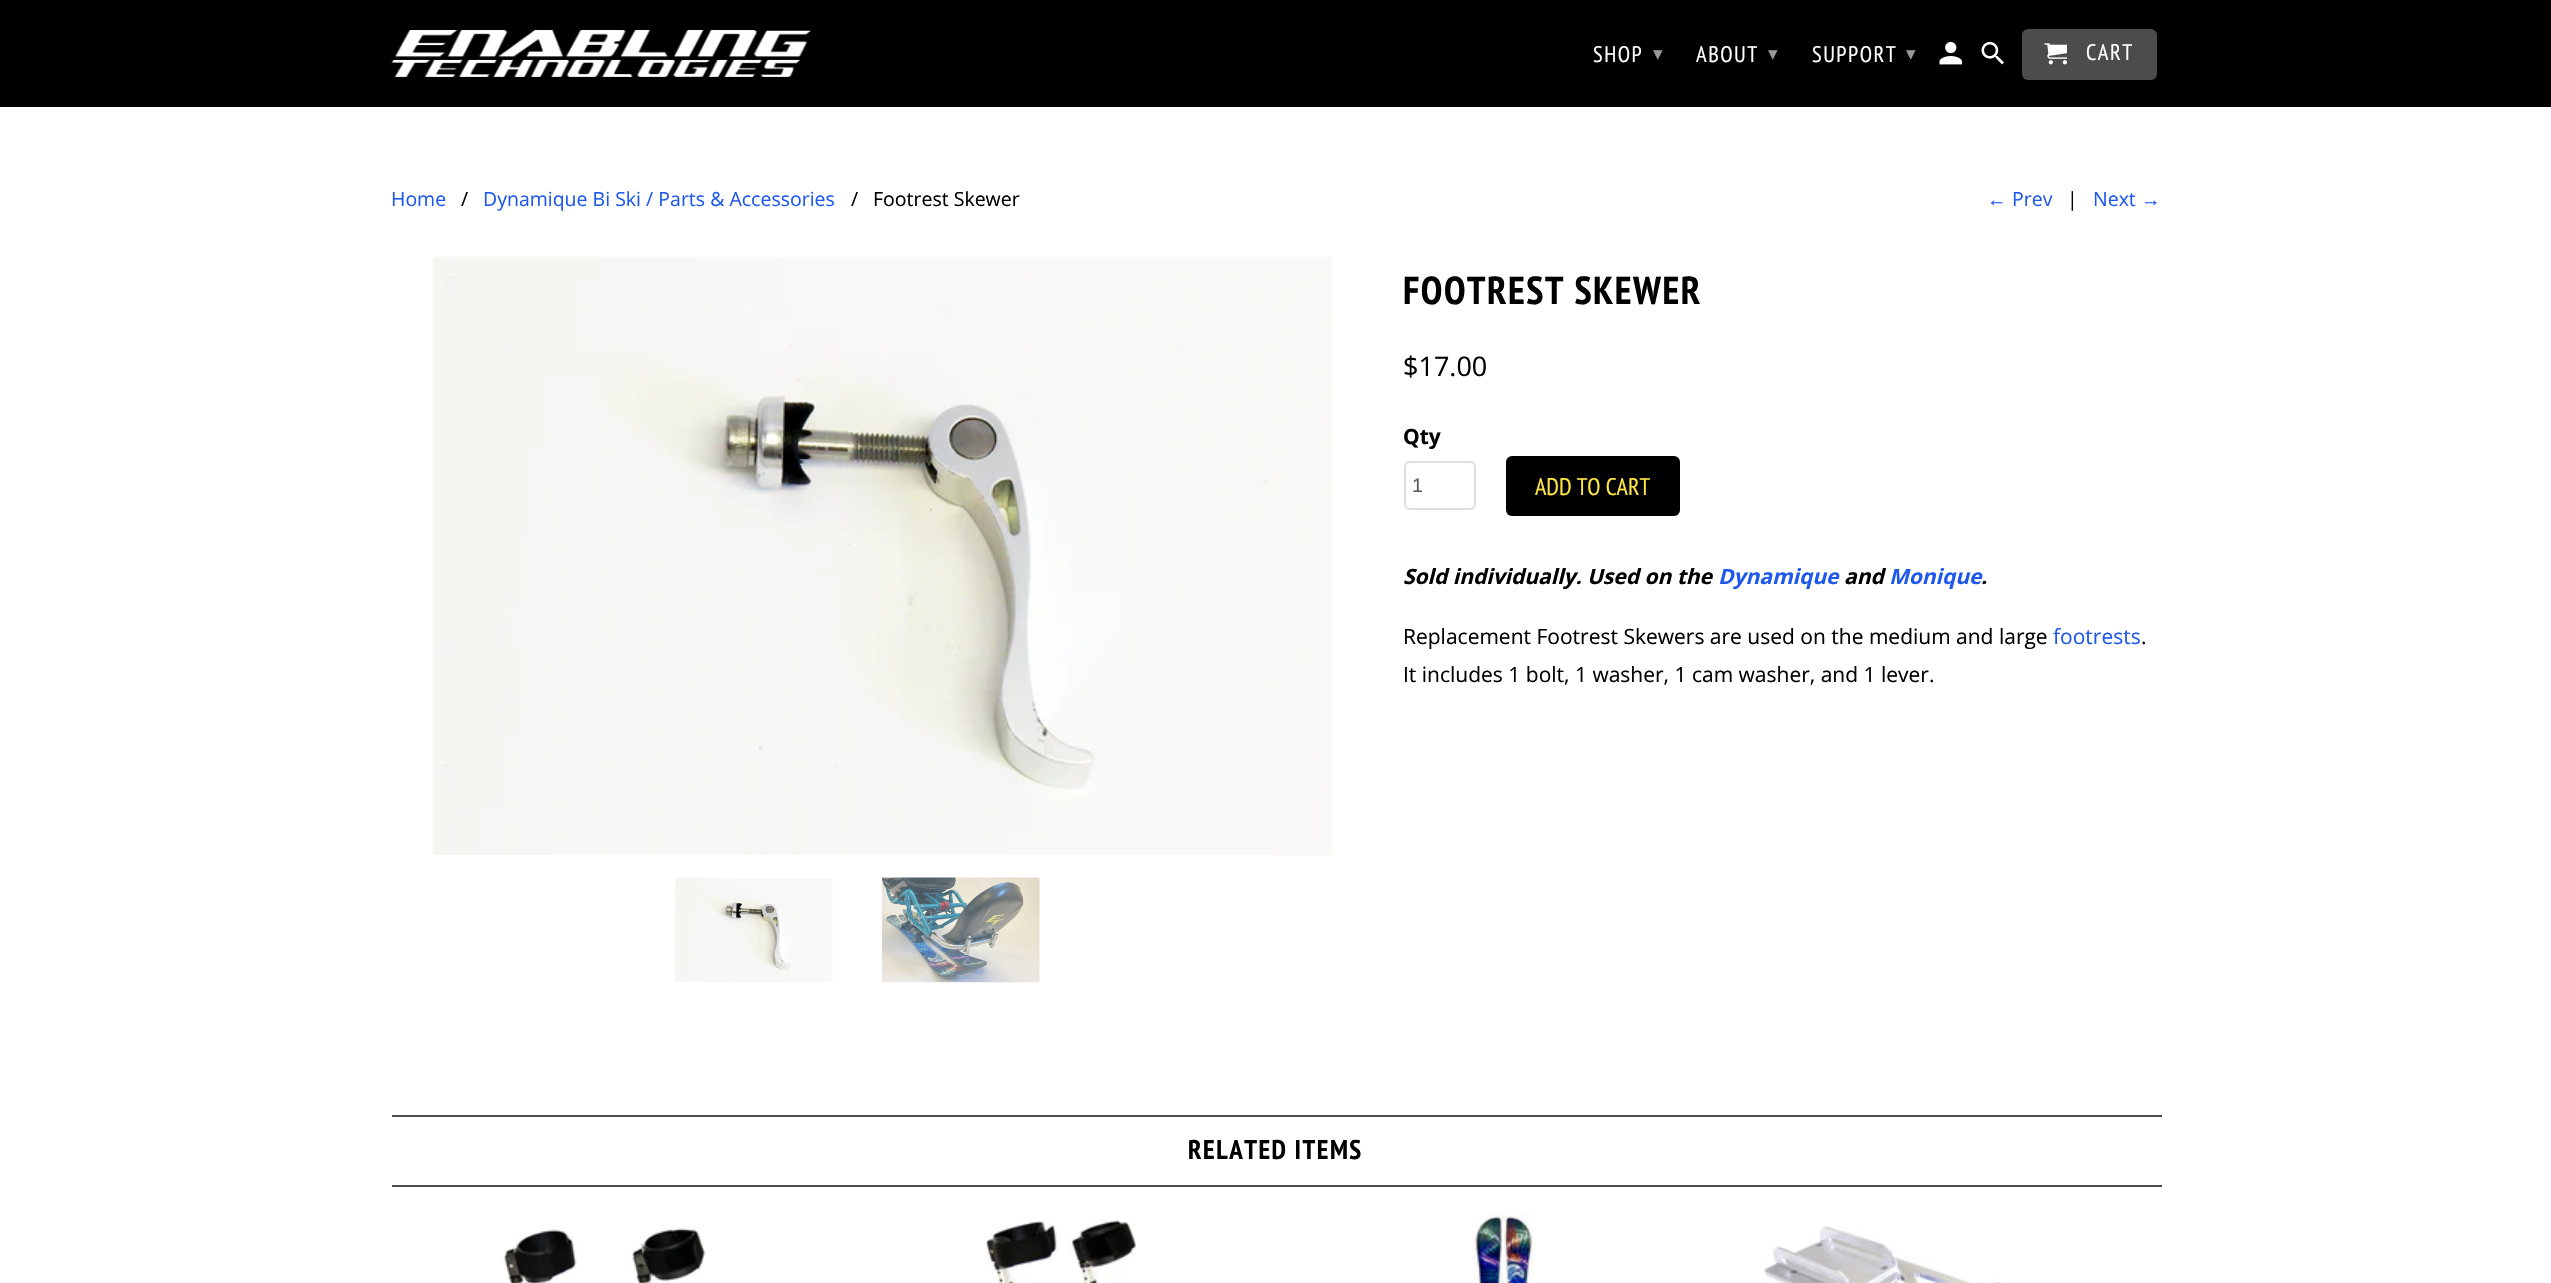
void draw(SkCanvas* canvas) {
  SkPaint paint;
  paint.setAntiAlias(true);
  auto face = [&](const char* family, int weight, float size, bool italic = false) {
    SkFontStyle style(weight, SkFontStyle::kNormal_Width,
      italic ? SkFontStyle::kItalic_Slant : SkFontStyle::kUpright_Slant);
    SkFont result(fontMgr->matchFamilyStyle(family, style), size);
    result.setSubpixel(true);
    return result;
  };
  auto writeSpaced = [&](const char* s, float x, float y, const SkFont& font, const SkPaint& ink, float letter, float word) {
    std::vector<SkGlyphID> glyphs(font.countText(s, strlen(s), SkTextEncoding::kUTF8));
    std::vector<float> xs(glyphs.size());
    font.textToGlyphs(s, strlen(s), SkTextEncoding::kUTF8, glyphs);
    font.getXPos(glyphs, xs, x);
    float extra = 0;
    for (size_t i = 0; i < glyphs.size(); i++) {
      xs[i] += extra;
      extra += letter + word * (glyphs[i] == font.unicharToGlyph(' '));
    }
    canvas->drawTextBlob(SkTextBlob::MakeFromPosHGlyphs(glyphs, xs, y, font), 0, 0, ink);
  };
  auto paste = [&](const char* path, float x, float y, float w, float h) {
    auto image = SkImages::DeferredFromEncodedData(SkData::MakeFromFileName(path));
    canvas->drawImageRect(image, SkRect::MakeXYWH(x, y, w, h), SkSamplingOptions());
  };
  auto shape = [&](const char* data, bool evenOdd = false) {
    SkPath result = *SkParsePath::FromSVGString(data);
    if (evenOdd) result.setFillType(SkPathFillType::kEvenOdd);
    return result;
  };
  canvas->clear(0xffffffff);
  paint.setColor(0xff000000);
  canvas->drawRect(SkRect::MakeXYWH(0, 0, 2551, 107), paint);
  paste("img/1.png", 391, 30, 421, 48);
  paste("img/2.png", 1939, 41, 23, 24);
  paste("img/3.png", 1981, 41, 23, 24);
  paint.setColor(0xff4c4c4c);
  canvas->drawRoundRect(SkRect::MakeXYWH(2022, 29, 135, 51), 6, 6, paint);
  paste("img/4.png", 2044, 43, 23, 22);
  paste("img/5.png", 432, 256, 900, 599);
  paste("img/6.png", 675, 878, 158, 104);
  paste("img/7.png", 882, 877, 158, 106);
  paint.setStroke(true);
  paint.setStrokeWidth(2);
  paint.setColor(0xffdce0e0);
  canvas->drawRoundRect(SkRect::MakeXYWH(1405, 462, 70, 47), 5, 5, paint);
  paint.setStroke(false);
  paint.setColor(0xff000000);
  canvas->drawRoundRect(SkRect::MakeXYWH(1506, 456, 174, 60), 6, 6, paint);
  paint.setColor(0x1a000000);
  canvas->drawPath(shape("M1506 506V510C1506 513 1509 516 1512 516H1674C1677 516 1680 513 1680 510V506C1680 509 1677 512 1674 512H1512C1509 512 1506 509 1506 506Z"), paint);
  paint.setColor(0xff4c4c4c);
  canvas->drawRect(SkRect::MakeXYWH(392, 1115, 1770, 2), paint);
  canvas->drawRect(SkRect::MakeXYWH(392, 1185, 1770, 2), paint);
  paste("img/8.png", 501, 1226, 205, 57);
  paste("img/9.png", 986, 1219, 150, 64);
  paste("img/10.png", 1472, 1213, 61, 70);
  paste("img/11.png", 1764, 1226, 239, 57);
  auto f0 = face("PT Sans Narrow", 400, 22.5f);
  paint.setColor(0xffffffff);
  writeSpaced("SHOP", 1593, 62, f0, paint, 1.5f, 0);
  auto f1 = face("DejaVu Sans", 400, 19);
  paint.setColor(0xff999999);
  writeSpaced("▾", 1653, 60, f1, paint, 1.5f, 0);
  paint.setColor(0xffffffff);
  writeSpaced("ABOUT", 1696, 62, f0, paint, 1.5f, 0);
  paint.setColor(0xff999999);
  writeSpaced("▾", 1768, 60, f1, paint, 1.5f, 0);
  paint.setColor(0xffffffff);
  writeSpaced("SUPPORT", 1812, 62, f0, paint, 1.5f, 0);
  paint.setColor(0xff999999);
  writeSpaced("▾", 1906, 60, f1, paint, 1.5f, 0);
  paint.setColor(0xffffffff);
  writeSpaced("CART", 2086, 60, f0, paint, 1.5f, 0);
  auto f2 = face("Open Sans", 400, 19.5f);
  paint.setColor(0xff1e58ed);
  canvas->drawString("Home", 391, 206, f2, paint);
  paint.setColor(0xff000000);
  canvas->drawString("/", 461, 206, f2, paint);
  paint.setColor(0xff1e58ed);
  canvas->drawString("Dynamique Bi Ski / Parts & Accessories", 483, 206, f2, paint);
  paint.setColor(0xff000000);
  canvas->drawString("/", 851, 206, f2, paint);
  canvas->drawString("Footrest Skewer", 873, 206, f2, paint);
  auto f3 = face("Liberation Serif", 400, 19.5f);
  paint.setColor(0xff1e58ed);
  canvas->drawString("←", 1987, 206, f3, paint);
  canvas->drawString("Prev", 2012, 206, f2, paint);
  paint.setColor(0xff000000);
  canvas->drawString("|", 2067, 206, f2, paint);
  paint.setColor(0xff1e58ed);
  canvas->drawString("Next", 2093, 206, f2, paint);
  canvas->drawString("→", 2141, 206, f3, paint);
  auto f4 = face("PT Sans Narrow", 700, 39);
  paint.setColor(0xff000000);
  writeSpaced("FOOTREST SKEWER", 1403, 304, f4, paint, 1.5f, 0);
  auto f5 = face("Open Sans", 400, 27);
  canvas->drawString("$17.00", 1403, 376, f5, paint);
  auto f6 = face("Open Sans", 700, 21);
  canvas->drawString("Qty", 1403, 444, f6, paint);
  auto f7 = face("Liberation Sans", 400, 19.5f);
  paint.setColor(0xff565a5c);
  canvas->drawString("1", 1412, 492, f7, paint);
  auto f8 = face("PT Sans Narrow", 400, 24);
  paint.setColor(0xfffee546);
  canvas->drawString("ADD TO CART", 1535, 495, f8, paint);
  auto f9 = face("Open Sans", 700, 21, true);
  paint.setColor(0xff000000);
  canvas->drawString("Sold individually. Used on the", 1403, 584, f9, paint);
  paint.setColor(0xff1e58ed);
  canvas->drawString("Dynamique", 1718, 584, f9, paint);
  paint.setColor(0xff000000);
  canvas->drawString("and", 1844, 584, f9, paint);
  paint.setColor(0xff1e58ed);
  canvas->drawString("Monique", 1889, 584, f9, paint);
  paint.setColor(0xff000000);
  canvas->drawString(".", 1981, 584, f9, paint);
  auto f10 = face("Open Sans", 400, 21);
  canvas->drawString("Replacement Footrest Skewers are used on the medium and large", 1403, 644, f10, paint);
  paint.setColor(0xff1e58ed);
  canvas->drawString("footrests", 2053, 644, f10, paint);
  paint.setColor(0xff000000);
  canvas->drawString(".", 2141, 644, f10, paint);
  canvas->drawString("It includes 1 bolt, 1 washer, 1 cam washer, and 1 lever.", 1403, 682, f10, paint);
  auto f11 = face("PT Sans Narrow", 700, 27);
  writeSpaced("RELATED ITEMS", 1188, 1159, f11, paint, 1.5f, 0);
}
